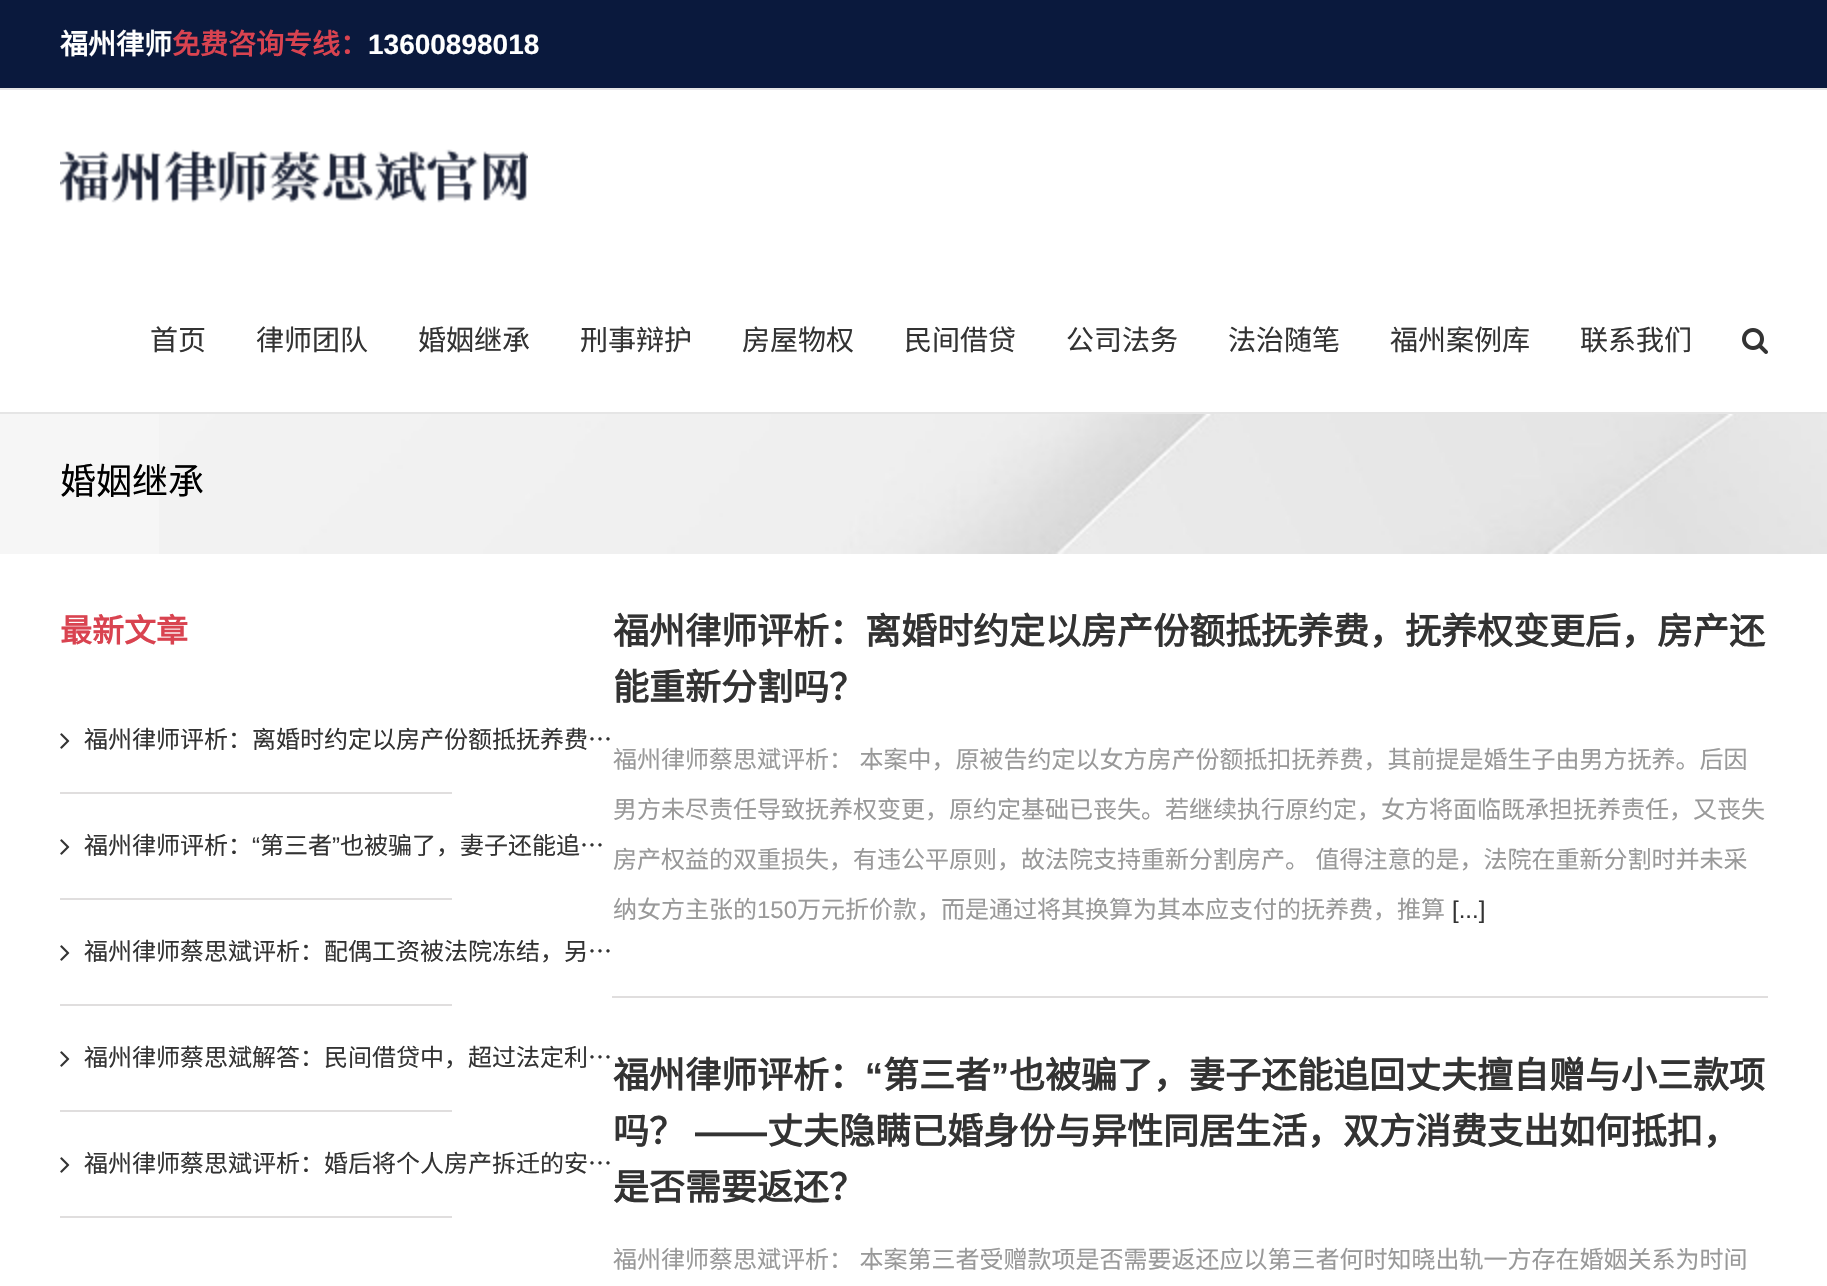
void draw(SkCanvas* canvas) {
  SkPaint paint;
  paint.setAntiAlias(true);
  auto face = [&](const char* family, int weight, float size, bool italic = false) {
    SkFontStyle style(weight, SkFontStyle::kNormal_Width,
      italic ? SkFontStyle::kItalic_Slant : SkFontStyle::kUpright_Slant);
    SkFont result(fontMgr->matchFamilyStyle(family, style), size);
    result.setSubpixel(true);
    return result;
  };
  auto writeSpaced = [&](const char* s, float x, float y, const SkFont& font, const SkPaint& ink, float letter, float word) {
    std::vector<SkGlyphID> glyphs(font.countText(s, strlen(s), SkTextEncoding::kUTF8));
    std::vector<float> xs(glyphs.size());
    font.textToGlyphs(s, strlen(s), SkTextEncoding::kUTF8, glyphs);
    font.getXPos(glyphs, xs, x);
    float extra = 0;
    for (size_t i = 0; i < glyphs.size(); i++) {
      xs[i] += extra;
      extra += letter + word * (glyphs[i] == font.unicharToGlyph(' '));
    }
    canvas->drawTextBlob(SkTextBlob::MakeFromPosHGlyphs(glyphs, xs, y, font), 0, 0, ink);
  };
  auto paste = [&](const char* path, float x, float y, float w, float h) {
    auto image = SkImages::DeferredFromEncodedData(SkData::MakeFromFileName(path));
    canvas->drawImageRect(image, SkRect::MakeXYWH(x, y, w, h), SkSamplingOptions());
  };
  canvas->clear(0xffffffff);
  {
    const struct { float x, y, w, h; SkColor color; } items[] = {
      {0, 0, 1827, 88, 0xff0a193d},
      {0, 88, 1827, 2, 0xffe5e5e5},
      {0, 412, 1827, 2, 0xffe5e5e5},
    };
    for (auto [x, y, w, h, color] : items) {
      paint.setColor(color);
      canvas->drawRect(SkRect::MakeXYWH(x, y, w, h), paint);
    }
  }
  paste("img/1.png", 60, 149, 468, 54);
  paste("img/2.png", 1742, 328, 26, 26);
  paint.setColor(0xfff6f6f6);
  canvas->drawRect(SkRect::MakeXYWH(0, 414, 159, 140), paint);
  paste("img/3.png", 159, 414, 1668, 140);
  paint.setColor(0xffe0dede);
  canvas->drawRect(SkRect::MakeXYWH(60, 792, 392, 2), paint);
  paste("img/4.png", 60, 733, 10, 16);
  canvas->drawRect(SkRect::MakeXYWH(60, 898, 392, 2), paint);
  paste("img/4.png", 60, 839, 10, 16);
  canvas->drawRect(SkRect::MakeXYWH(60, 1004, 392, 2), paint);
  paste("img/4.png", 60, 945, 10, 16);
  canvas->drawRect(SkRect::MakeXYWH(60, 1110, 392, 2), paint);
  paste("img/4.png", 60, 1051, 10, 16);
  canvas->drawRect(SkRect::MakeXYWH(60, 1216, 392, 2), paint);
  paste("img/4.png", 60, 1157, 10, 16);
  canvas->drawRect(SkRect::MakeXYWH(612, 996, 1156, 2), paint);
  auto f0 = face("Noto Sans CJK SC", 700, 28);
  paint.setColor(0xffffffff);
  canvas->drawString("福州律师", 60, 54, f0, paint);
  paint.setColor(0xffd94350);
  canvas->drawString("免费咨询专线：", 172, 54, f0, paint);
  auto f1 = face("Liberation Sans", 700, 28);
  paint.setColor(0xffffffff);
  canvas->drawString("13600898018", 368, 54, f1, paint);
  auto f2 = face("Noto Sans CJK SC", 400, 28);
  paint.setColor(0xff333333);
  {
    const struct { const char* s; float x, y; } items[] = {
      {"首页", 150, 350},
      {"律师团队", 256, 350},
      {"婚姻继承", 418, 350},
      {"刑事辩护", 580, 350},
      {"房屋物权", 742, 350},
      {"民间借贷", 904, 350},
      {"公司法务", 1066, 350},
      {"法治随笔", 1228, 350},
      {"福州案例库", 1390, 350},
      {"联系我们", 1580, 350},
    };
    for (auto [s, x, y] : items) {
      canvas->drawString(s, x, y, f2, paint);
    }
  }
  auto f3 = face("Noto Sans CJK SC", 400, 36);
  paint.setColor(0xff000000);
  canvas->drawString("婚姻继承", 60, 494, f3, paint);
  auto f4 = face("Noto Sans CJK SC", 700, 32);
  paint.setColor(0xffd94350);
  canvas->drawString("最新文章", 60, 642, f4, paint);
  auto f5 = face("Noto Sans CJK SC", 400, 24);
  paint.setColor(0xff333333);
  canvas->drawString("福州律师评析：离婚时约定以房产份额抵抚养费…", 84, 748, f5, paint);
  canvas->drawString("福州律师评析：", 84, 854, f5, paint);
  auto f6 = face("Liberation Sans", 400, 24);
  canvas->drawString("“", 252, 854, f6, paint);
  canvas->drawString("第三者", 260, 854, f5, paint);
  canvas->drawString("”", 332, 854, f6, paint);
  {
    const struct { const char* s; float x, y; } items[] = {
      {"也被骗了，妻子还能追…", 340, 854},
      {"福州律师蔡思斌评析：配偶工资被法院冻结，另…", 84, 960},
      {"福州律师蔡思斌解答：民间借贷中，超过法定利…", 84, 1066},
      {"福州律师蔡思斌评析：婚后将个人房产拆迁的安…", 84, 1172},
    };
    for (auto [s, x, y] : items) {
      canvas->drawString(s, x, y, f5, paint);
    }
  }
  auto f7 = face("Noto Sans CJK SC", 700, 36);
  canvas->drawString("福州律师评析：离婚时约定以房产份额抵抚养费，抚养权变更后，房产还", 613, 644, f7, paint);
  canvas->drawString("能重新分割吗？", 613, 700, f7, paint);
  paint.setColor(0xff999999);
  writeSpaced("福州律师蔡思斌评析： 本案中，原被告约定以女方房产份额抵扣抚养费，其前提是婚生子由男方抚养。后因", 613, 768, f5, paint, 0, 1);
  canvas->drawString("男方未尽责任导致抚养权变更，原约定基础已丧失。若继续执行原约定，女方将面临既承担抚养责任，又丧失", 613, 818, f5, paint);
  writeSpaced("房产权益的双重损失，有违公平原则，故法院支持重新分割房产。 值得注意的是，法院在重新分割时并未采", 613, 868, f5, paint, 0, 1);
  canvas->drawString("纳女方主张的", 613, 918, f5, paint);
  canvas->drawString("150", 757, 918, f6, paint);
  canvas->drawString("万元折价款，而是通过将其换算为其本应支付的抚养费，推算", 797, 918, f5, paint);
  paint.setColor(0xff333333);
  canvas->drawString("[...]", 1452, 918, f6, paint);
  canvas->drawString("福州律师评析：", 613, 1088, f7, paint);
  auto f8 = face("Liberation Sans", 700, 36);
  canvas->drawString("“", 865, 1088, f8, paint);
  canvas->drawString("第三者", 883, 1088, f7, paint);
  canvas->drawString("”", 991, 1088, f8, paint);
  canvas->drawString("也被骗了，妻子还能追回丈夫擅自赠与小三款项", 1009, 1088, f7, paint);
  canvas->drawString("吗？", 613, 1144, f7, paint);
  canvas->drawString("——", 695, 1144, f8, paint);
  canvas->drawString("丈夫隐瞒已婚身份与异性同居生活，双方消费支出如何抵扣，", 767, 1144, f7, paint);
  canvas->drawString("是否需要返还？", 613, 1200, f7, paint);
  paint.setColor(0xff999999);
  writeSpaced("福州律师蔡思斌评析： 本案第三者受赠款项是否需要返还应以第三者何时知晓出轨一方存在婚姻关系为时间", 613, 1268, f5, paint, 0, 1);
}
